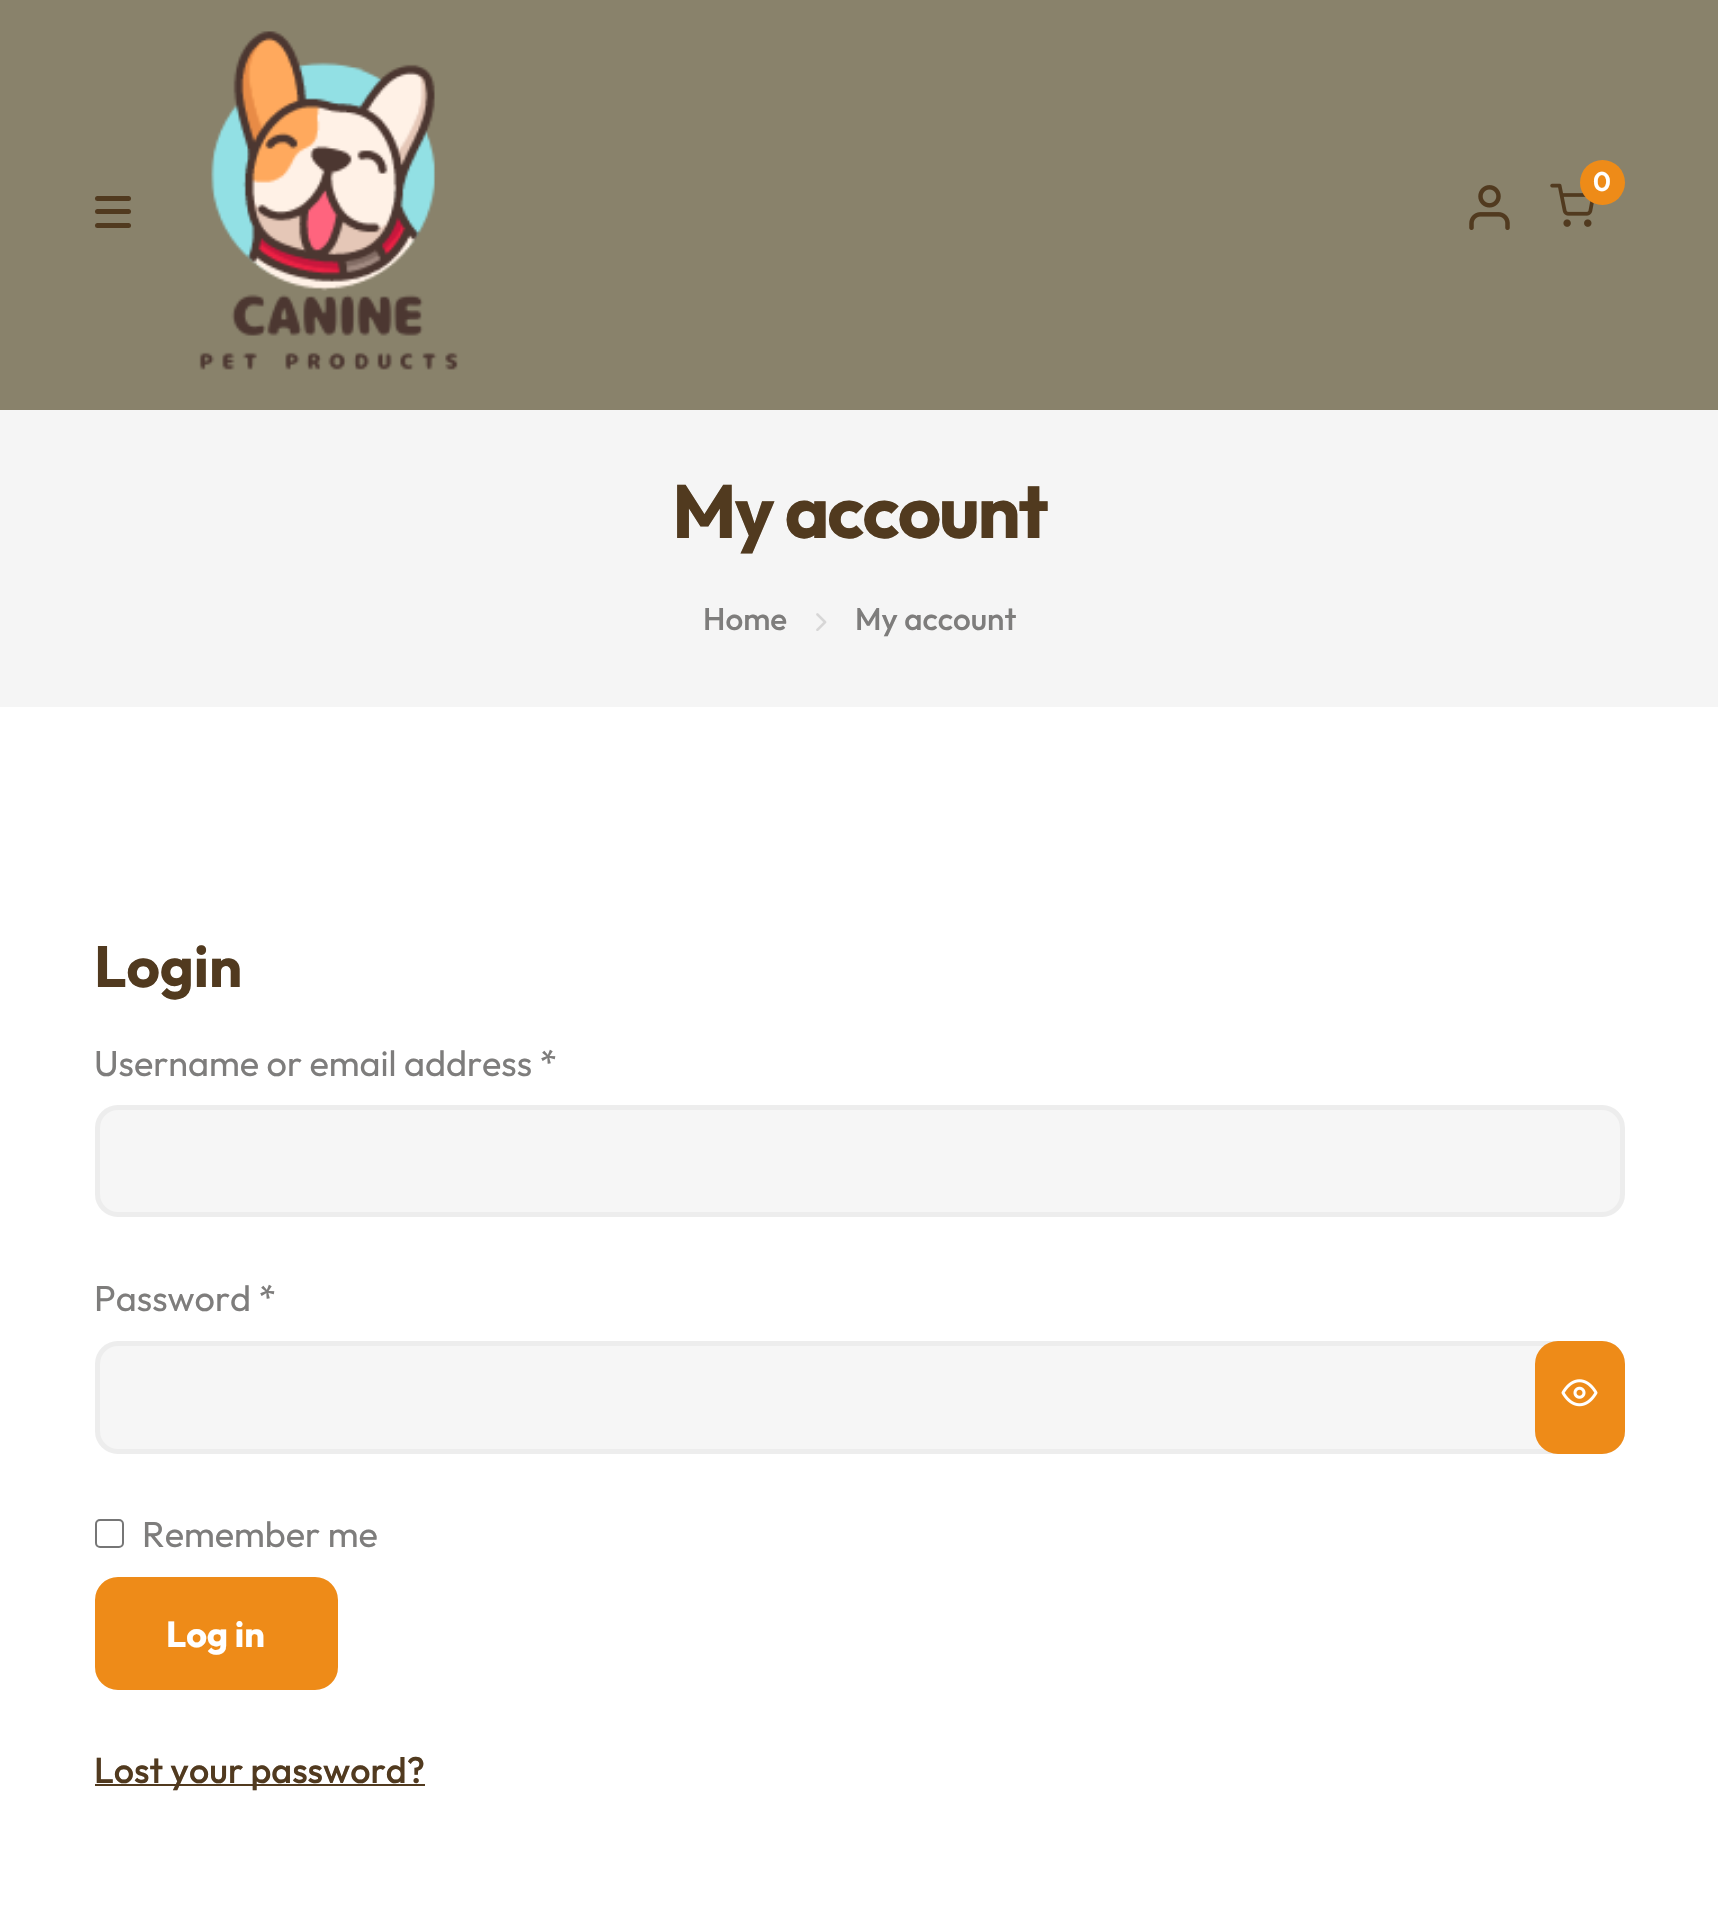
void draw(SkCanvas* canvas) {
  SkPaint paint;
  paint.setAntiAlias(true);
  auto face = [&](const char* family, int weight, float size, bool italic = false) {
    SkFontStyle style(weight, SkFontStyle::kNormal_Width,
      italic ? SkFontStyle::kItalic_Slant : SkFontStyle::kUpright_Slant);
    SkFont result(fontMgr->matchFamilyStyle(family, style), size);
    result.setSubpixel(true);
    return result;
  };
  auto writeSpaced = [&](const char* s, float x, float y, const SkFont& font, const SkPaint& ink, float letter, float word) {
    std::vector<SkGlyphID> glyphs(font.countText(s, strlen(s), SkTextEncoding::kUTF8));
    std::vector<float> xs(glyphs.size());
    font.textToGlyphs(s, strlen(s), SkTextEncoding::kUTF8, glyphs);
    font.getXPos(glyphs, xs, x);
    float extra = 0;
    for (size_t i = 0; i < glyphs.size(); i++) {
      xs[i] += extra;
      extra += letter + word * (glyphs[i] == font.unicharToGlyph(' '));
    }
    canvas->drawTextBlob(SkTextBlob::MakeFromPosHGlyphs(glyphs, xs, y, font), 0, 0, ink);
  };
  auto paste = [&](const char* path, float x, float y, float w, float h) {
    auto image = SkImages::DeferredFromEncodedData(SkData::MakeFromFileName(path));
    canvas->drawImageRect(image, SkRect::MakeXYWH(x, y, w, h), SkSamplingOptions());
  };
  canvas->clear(0xffffffff);
  paint.setColor(0xff89826b);
  canvas->drawRect(SkRect::MakeXYWH(0, 0, 1718, 410), paint);
  paste("img/1.png", 199, 31, 259, 339);
  paste("img/2.png", 1550, 183, 44, 44);
  paint.setColor(0xffee8b18);
  canvas->drawCircle(1602.5f, 182.5f, 22.5f, paint);
  paste("img/3.png", 1469, 185, 41, 45);
  paint.setColor(0xff513a1f);
  canvas->drawRoundRect(SkRect::MakeXYWH(95, 196, 36, 5), 2.5f, 2.5f, paint);
  canvas->drawRoundRect(SkRect::MakeXYWH(95, 209, 36, 5), 2.5f, 2.5f, paint);
  canvas->drawRoundRect(SkRect::MakeXYWH(95, 223, 36, 5), 2.5f, 2.5f, paint);
  paint.setColor(0xfff5f5f5);
  canvas->drawRect(SkRect::MakeXYWH(0, 410, 1718, 297), paint);
  paste("img/4.png", 816, 613, 11, 18);
  paint.setColor(0xfff6f6f6);
  canvas->drawRoundRect(SkRect::MakeXYWH(97.5f, 1107.5f, 1525, 107), 20.5f, 20.5f, paint);
  paint.setStroke(true);
  paint.setStrokeWidth(5);
  paint.setColor(0xffededed);
  canvas->drawRoundRect(SkRect::MakeXYWH(97.5f, 1107.5f, 1525, 107), 20.5f, 20.5f, paint);
  paint.setStroke(false);
  paint.setColor(0xfff6f6f6);
  canvas->drawRoundRect(SkRect::MakeXYWH(97.5f, 1343.5f, 1525, 108), 20.5f, 20.5f, paint);
  paint.setStroke(true);
  paint.setColor(0xffededed);
  canvas->drawRoundRect(SkRect::MakeXYWH(97.5f, 1343.5f, 1525, 108), 20.5f, 20.5f, paint);
  paint.setStroke(false);
  paint.setColor(0xffee8b18);
  canvas->drawRoundRect(SkRect::MakeXYWH(1537.5f, 1343.5f, 85, 108), 20.5f, 20.5f, paint);
  paint.setStroke(true);
  canvas->drawRoundRect(SkRect::MakeXYWH(1537.5f, 1343.5f, 85, 108), 20.5f, 20.5f, paint);
  paste("img/5.png", 1561, 1379, 37, 28);
  paint.setStrokeWidth(2);
  paint.setColor(0xff767676);
  canvas->drawRoundRect(SkRect::MakeXYWH(96, 1520, 27, 27), 4, 4, paint);
  paint.setStroke(false);
  paint.setColor(0xffee8b18);
  canvas->drawRoundRect(SkRect::MakeXYWH(97.5f, 1579.5f, 238, 108), 20.5f, 20.5f, paint);
  paint.setStroke(true);
  paint.setStrokeWidth(5);
  canvas->drawRoundRect(SkRect::MakeXYWH(97.5f, 1579.5f, 238, 108), 20.5f, 20.5f, paint);
  paint.setStroke(false);
  paint.setColor(0xff513a1f);
  canvas->drawRect(SkRect::MakeXYWH(95, 1784, 330, 2), paint);
  auto f0 = face("Outfit", 600, 27);
  paint.setColor(0xffffffff);
  canvas->drawString("0", 1593, 191, f0, paint);
  auto f1 = face("Outfit", 700, 75.5f);
  paint.setColor(0xff513a1f);
  writeSpaced("My account", 672, 538, f1, paint, -2.25f, 0);
  auto f2 = face("Outfit", 500, 31.5f);
  paint.setColor(0xff7e7d7c);
  canvas->drawString("Home", 703, 630, f2, paint);
  canvas->drawString("My account", 855, 630, f2, paint);
  auto f3 = face("Outfit", 700, 58);
  paint.setColor(0xff513a1f);
  canvas->drawString("Login", 94, 987, f3, paint);
  auto f4 = face("Outfit", 400, 36);
  paint.setColor(0xff7e7d7c);
  {
    const struct { const char* s; float x, y; } items[] = {
      {"Username or email address *", 94, 1076},
      {"Password *", 94, 1311},
      {"Remember me", 142, 1547},
    };
    for (auto [s, x, y] : items) {
      canvas->drawString(s, x, y, f4, paint);
    }
  }
  auto f5 = face("Outfit", 700, 36);
  paint.setColor(0xffffffff);
  canvas->drawString("Log in", 166, 1647, f5, paint);
  auto f6 = face("Outfit", 500, 36);
  paint.setColor(0xff513a1f);
  canvas->drawString("Lost your password?", 94, 1783, f6, paint);
}
